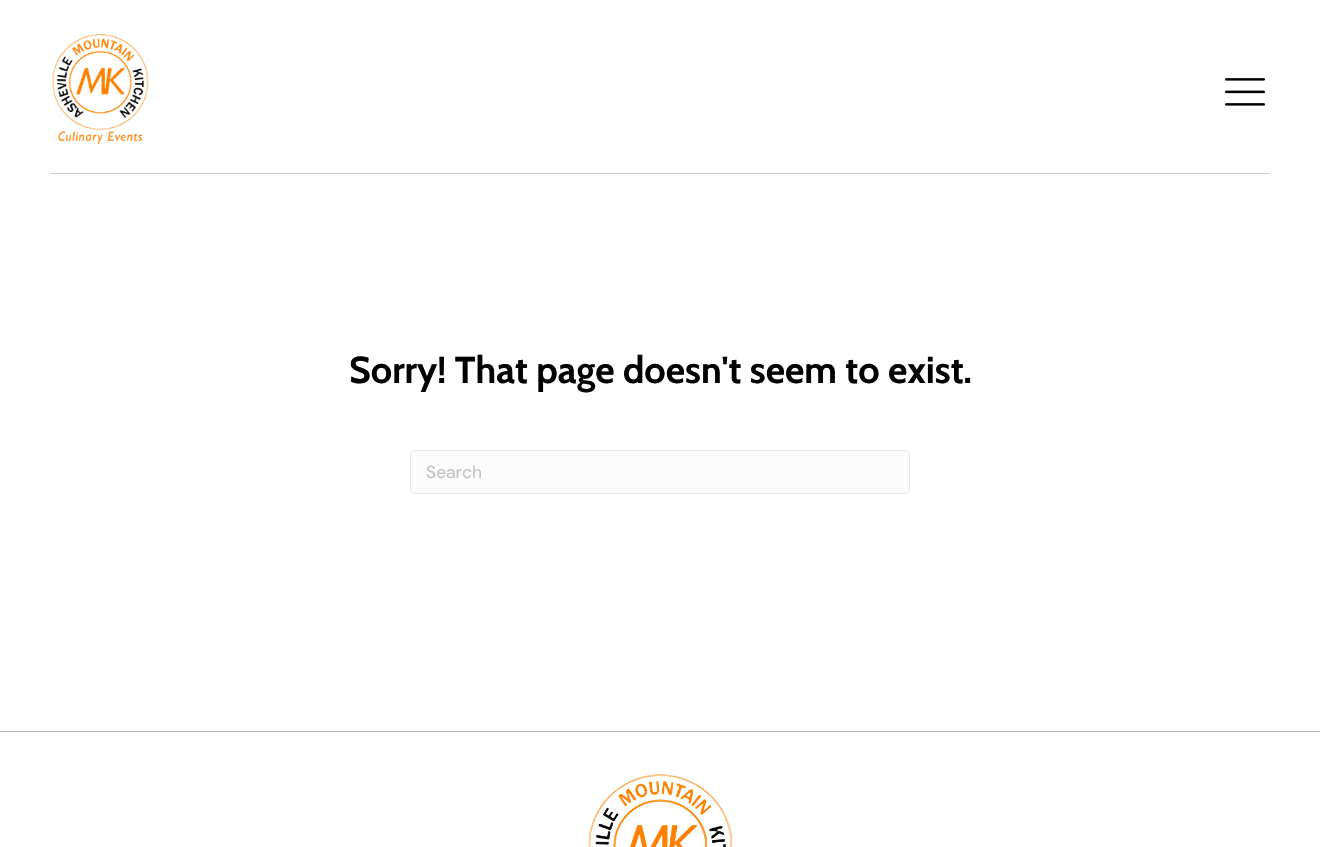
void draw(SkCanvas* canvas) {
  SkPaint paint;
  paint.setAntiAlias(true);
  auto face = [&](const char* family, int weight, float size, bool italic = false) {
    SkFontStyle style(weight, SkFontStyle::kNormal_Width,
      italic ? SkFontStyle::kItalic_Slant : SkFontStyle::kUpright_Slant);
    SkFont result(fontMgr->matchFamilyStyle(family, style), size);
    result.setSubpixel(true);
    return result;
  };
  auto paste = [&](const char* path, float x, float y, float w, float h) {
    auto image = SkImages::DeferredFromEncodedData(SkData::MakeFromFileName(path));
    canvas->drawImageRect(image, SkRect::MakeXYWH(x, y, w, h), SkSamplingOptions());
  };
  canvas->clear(0xffffffff);
  paint.setColor(0xffcccccc);
  canvas->drawRect(SkRect::MakeXYWH(50, 173, 1220, 1), paint);
  paste("img/1.png", 52, 34, 97, 110);
  paste("img/2.png", 1225, 78, 40, 28);
  paint.setColor(0xfffcfcfc);
  canvas->drawRoundRect(SkRect::MakeXYWH(410.5f, 450.5f, 499, 43), 4.5f, 4.5f, paint);
  paint.setStroke(true);
  paint.setStrokeWidth(1);
  paint.setColor(0xffe6e6e6);
  canvas->drawRoundRect(SkRect::MakeXYWH(410.5f, 450.5f, 499, 43), 4.5f, 4.5f, paint);
  paint.setStroke(false);
  paint.setColor(0xffb3b3b3);
  canvas->drawRect(SkRect::MakeXYWH(0, 731, 1320, 1), paint);
  paste("img/3.png", 588, 774, 145, 73);
  auto f0 = face("Cabin", 700, 37.5f);
  paint.setColor(0xff000000);
  canvas->drawString("Sorry! That page doesn't seem to exist.", 349, 383, f0, paint);
  auto f1 = face("DM Sans", 400, 17.5f);
  paint.setColor(0xffc2c2c2);
  canvas->drawString("Search", 426, 478, f1, paint);
}
